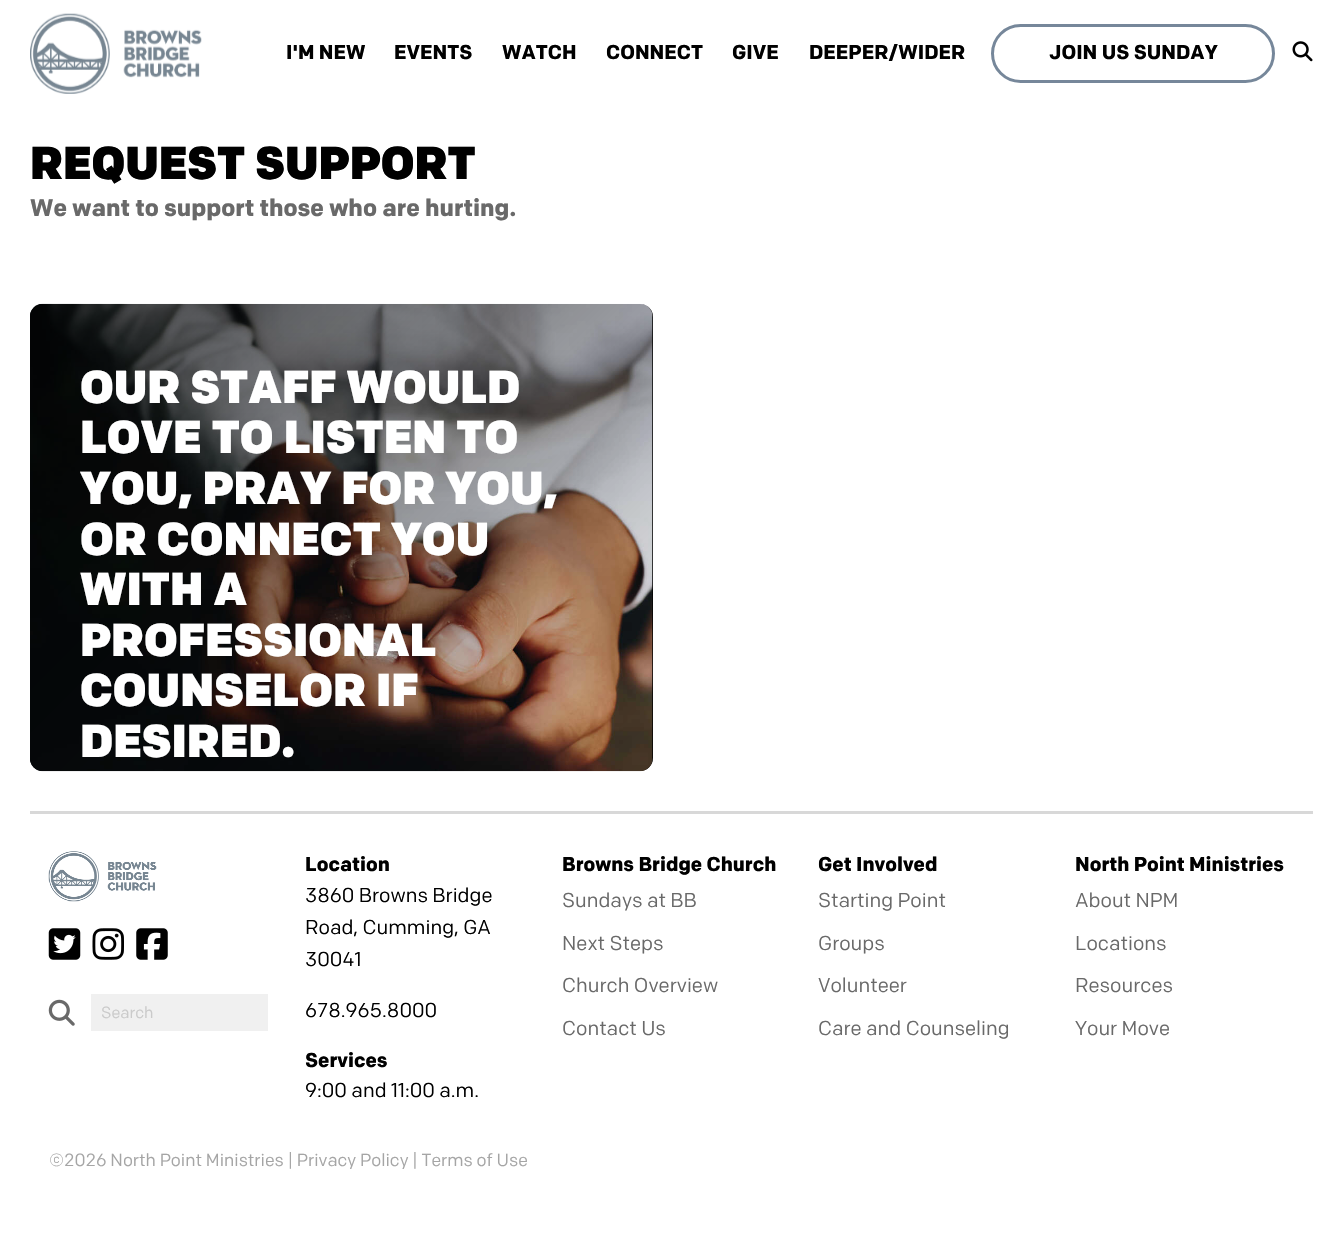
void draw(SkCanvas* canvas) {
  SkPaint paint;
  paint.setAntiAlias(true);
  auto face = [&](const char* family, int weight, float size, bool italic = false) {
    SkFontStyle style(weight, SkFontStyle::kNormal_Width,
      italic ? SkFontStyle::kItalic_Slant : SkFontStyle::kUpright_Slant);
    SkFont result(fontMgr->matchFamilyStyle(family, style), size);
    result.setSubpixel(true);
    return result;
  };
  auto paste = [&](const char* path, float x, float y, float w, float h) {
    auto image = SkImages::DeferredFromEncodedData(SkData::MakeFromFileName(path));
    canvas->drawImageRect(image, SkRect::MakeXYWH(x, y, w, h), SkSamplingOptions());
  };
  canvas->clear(0xffffffff);
  paste("img/1.png", 30, 13, 172, 81);
  paint.setStroke(true);
  paint.setStrokeWidth(3);
  paint.setColor(0xff76879a);
  canvas->drawRoundRect(SkRect::MakeXYWH(992.5f, 25.5f, 281, 56), 28, 28, paint);
  paste("img/2.png", 1292, 41, 21, 21);
  paint.setStroke(false);
  paint.setColor(0xff000000);
  canvas->drawRoundRect(SkRect::MakeXYWH(30, 304, 623, 467), 13, 13, paint);
  paste("img/3.png", 30, 303, 623, 469);
  {
    const SkColor colors[] = {0xb3000000, 0x00000000};
    const float stops[] = {0, 1};
    const SkPoint ends[] = {{69, 265}, {614, 810}};
    paint.setShader(SkGradientShader::MakeLinear(ends, colors, stops, 2, SkTileMode::kClamp));
    paint.setAlpha(255);
  }
  canvas->drawRoundRect(SkRect::MakeXYWH(30, 304, 623, 467), 13, 13, paint);
  paint.setShader(nullptr);
  paint.setColor(0xffd8d8d8);
  canvas->drawRect(SkRect::MakeXYWH(30, 811, 1283, 3), paint);
  paste("img/4.png", 48, 851, 109, 51);
  paste("img/5.png", 48, 928, 33, 32);
  paste("img/6.png", 92, 928, 32, 32);
  paste("img/7.png", 136, 928, 32, 32);
  paste("img/8.png", 48, 999, 27, 27);
  paint.setColor(0xfff0f0f0);
  canvas->drawRect(SkRect::MakeXYWH(91, 994, 177, 37), paint);
  auto f0 = face("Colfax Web", 700, 20);
  paint.setColor(0xff000000);
  {
    const struct { const char* s; float x, y; } items[] = {
      {"I'M NEW", 286, 59},
      {"EVENTS", 394, 59},
      {"WATCH", 502, 59},
      {"CONNECT", 606, 59},
      {"GIVE", 732, 59},
      {"DEEPER/WIDER", 809, 59},
      {"JOIN US SUNDAY", 1049, 59},
    };
    for (auto [s, x, y] : items) {
      canvas->drawString(s, x, y, f0, paint);
    }
  }
  auto f1 = face("Colfax Web", 900, 46);
  canvas->drawString("REQUEST SUPPORT", 30, 179, f1, paint);
  auto f2 = face("Colfax Web", 700, 24);
  paint.setColor(0xff696969);
  canvas->drawString("We want to support those who are hurting.", 30, 216, f2, paint);
  paint.setColor(0xffffffff);
  {
    const struct { const char* s; float x, y; } items[] = {
      {"OUR STAFF WOULD", 80, 403},
      {"LOVE TO LISTEN TO", 80, 453},
      {"YOU, PRAY FOR YOU,", 80, 504},
      {"OR CONNECT YOU", 80, 555},
      {"WITH A", 80, 605},
      {"PROFESSIONAL", 80, 656},
      {"COUNSELOR IF", 80, 706},
      {"DESIRED.", 80, 757},
    };
    for (auto [s, x, y] : items) {
      canvas->drawString(s, x, y, f1, paint);
    }
  }
  auto f3 = face("Colfax Web", 400, 16);
  paint.setColor(0xffcacaca);
  canvas->drawString("Search", 101, 1018, f3, paint);
  paint.setColor(0xff000000);
  canvas->drawString("Location", 305, 871, f0, paint);
  auto f4 = face("Colfax Web", 400, 20);
  {
    const struct { const char* s; float x, y; } items[] = {
      {"3860 Browns Bridge", 305, 902},
      {"Road, Cumming, GA", 305, 934},
      {"30041", 305, 966},
      {"678.965.8000", 305, 1017},
    };
    for (auto [s, x, y] : items) {
      canvas->drawString(s, x, y, f4, paint);
    }
  }
  canvas->drawString("Services", 305, 1067, f0, paint);
  canvas->drawString("9:00 and 11:00 a.m.", 305, 1097, f4, paint);
  canvas->drawString("Browns Bridge Church", 562, 871, f0, paint);
  paint.setColor(0xff696969);
  {
    const struct { const char* s; float x, y; } items[] = {
      {"Sundays at BB", 562, 907},
      {"Next Steps", 562, 950},
      {"Church Overview", 562, 992},
      {"Contact Us", 562, 1035},
    };
    for (auto [s, x, y] : items) {
      canvas->drawString(s, x, y, f4, paint);
    }
  }
  paint.setColor(0xff000000);
  canvas->drawString("Get Involved", 818, 871, f0, paint);
  paint.setColor(0xff696969);
  {
    const struct { const char* s; float x, y; } items[] = {
      {"Starting Point", 818, 907},
      {"Groups", 818, 950},
      {"Volunteer", 818, 992},
      {"Care and Counseling", 818, 1035},
    };
    for (auto [s, x, y] : items) {
      canvas->drawString(s, x, y, f4, paint);
    }
  }
  paint.setColor(0xff000000);
  canvas->drawString("North Point Ministries", 1075, 871, f0, paint);
  paint.setColor(0xff696969);
  {
    const struct { const char* s; float x, y; } items[] = {
      {"About NPM", 1075, 907},
      {"Locations", 1075, 950},
      {"Resources", 1075, 992},
      {"Your Move", 1075, 1035},
    };
    for (auto [s, x, y] : items) {
      canvas->drawString(s, x, y, f4, paint);
    }
  }
  auto f5 = face("Colfax Web", 400, 17.5f);
  paint.setColor(0xffa5a5a5);
  canvas->drawString("©2026 North Point Ministries | Privacy Policy | Terms of Use", 49, 1166, f5, paint);
}
